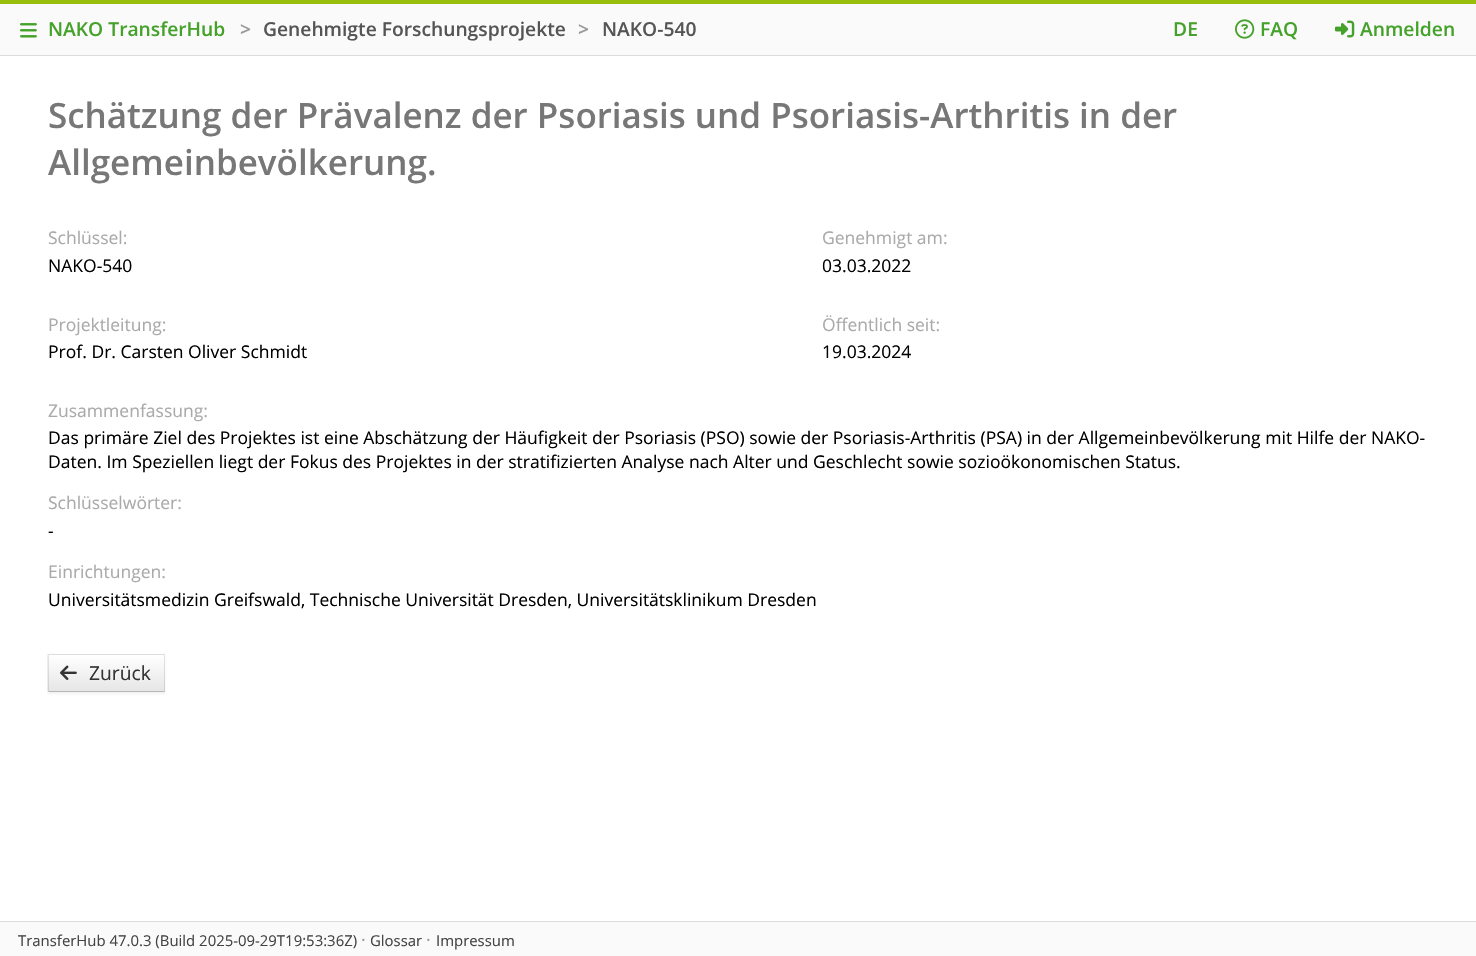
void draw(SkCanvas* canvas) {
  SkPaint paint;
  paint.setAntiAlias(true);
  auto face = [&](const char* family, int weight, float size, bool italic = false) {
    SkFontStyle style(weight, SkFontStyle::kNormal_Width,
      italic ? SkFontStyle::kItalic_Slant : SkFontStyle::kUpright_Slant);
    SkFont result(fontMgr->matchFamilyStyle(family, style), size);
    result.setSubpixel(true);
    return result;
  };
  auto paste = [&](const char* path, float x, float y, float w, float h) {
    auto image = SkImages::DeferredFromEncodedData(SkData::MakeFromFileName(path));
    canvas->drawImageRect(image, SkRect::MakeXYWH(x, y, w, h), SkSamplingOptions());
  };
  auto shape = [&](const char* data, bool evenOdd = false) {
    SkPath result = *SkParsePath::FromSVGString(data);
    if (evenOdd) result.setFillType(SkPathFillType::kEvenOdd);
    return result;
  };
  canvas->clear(0xffffffff);
  {
    const struct { float x, y, w, h; SkColor color; } items[] = {
      {0, 4, 1476, 51, 0xfffafafa},
      {0, 0, 1476, 4, 0xff98bf0c},
      {0, 55, 1476, 1, 0xffdddddd},
    };
    for (auto [x, y, w, h, color] : items) {
      paint.setColor(color);
      canvas->drawRect(SkRect::MakeXYWH(x, y, w, h), paint);
    }
  }
  paste("img/1.png", 20, 23, 17, 15);
  paste("img/2.png", 1235, 19, 20, 20);
  paste("img/3.png", 1335, 20, 20, 18);
  paint.setColor(0x0d000000);
  paint.setMaskFilter(SkMaskFilter::MakeBlur(kNormal_SkBlurStyle, 1));
  canvas->drawRect(SkRect::MakeXYWH(48, 655, 117, 39), paint);
  paint.setMaskFilter(nullptr);
  paint.setColor(0xfff5f5f5);
  canvas->drawRect(SkRect::MakeXYWH(48, 654, 117, 38), paint);
  {
    const SkColor colors[] = {0xffffffff, 0xffe6e6e6};
    const float stops[] = {0, 1};
    const SkPoint ends[] = {{106, 655}, {106, 691}};
    paint.setShader(SkGradientShader::MakeLinear(ends, colors, stops, 2, SkTileMode::kClamp));
    paint.setAlpha(255);
  }
  canvas->drawRect(SkRect::MakeXYWH(48, 655, 117, 36), paint);
  paint.setShader(nullptr);
  paint.setColor(0xffdddddd);
  canvas->drawPath(shape("M48 654H165L164 655H49Z"), paint);
  paint.setColor(0x1a000000);
  canvas->drawPath(shape("M165 654V692.5L164 691V655Z"), paint);
  paint.setColor(0x40000000);
  canvas->drawPath(shape("M165 692H48L49 691H164Z"), paint);
  paint.setColor(0x1a000000);
  canvas->drawPath(shape("M47.5 692.5V654L49 655V691Z"), paint);
  paste("img/4.png", 60, 665, 17, 15);
  paint.setColor(0xfffafafa);
  canvas->drawRect(SkRect::MakeXYWH(0, 922, 1476, 34), paint);
  paint.setColor(0xffdddddd);
  canvas->drawRect(SkRect::MakeXYWH(0, 921, 1476, 1), paint);
  auto f0 = face("Open Sans", 600, 19.25f);
  paint.setColor(0xff44a22a);
  canvas->drawString("NAKO TransferHub", 48, 36, f0, paint);
  paint.setColor(0xff999999);
  canvas->drawString(">", 240, 36, f0, paint);
  paint.setColor(0xff555555);
  canvas->drawString("Genehmigte Forschungsprojekte", 263, 36, f0, paint);
  paint.setColor(0xff999999);
  canvas->drawString(">", 578, 36, f0, paint);
  paint.setColor(0xff555555);
  canvas->drawString("NAKO-540", 602, 36, f0, paint);
  paint.setColor(0xff44a22a);
  {
    const struct { const char* s; float x, y; } items[] = {
      {"DE", 1173, 36},
      {"FAQ", 1260, 36},
      {"Anmelden", 1360, 36},
    };
    for (auto [s, x, y] : items) {
      canvas->drawString(s, x, y, f0, paint);
    }
  }
  auto f1 = face("Open Sans", 600, 35);
  paint.setColor(0xff777777);
  canvas->drawString("Schätzung der Prävalenz der Psoriasis und Psoriasis-Arthritis in der", 48, 128, f1, paint);
  canvas->drawString("Allgemeinbevölkerung.", 48, 175, f1, paint);
  auto f2 = face("Open Sans", 400, 17.5f);
  paint.setColor(0xffaaaaaa);
  canvas->drawString("Schlüssel:", 48, 244, f2, paint);
  paint.setColor(0xff000000);
  canvas->drawString("NAKO-540", 48, 272, f2, paint);
  paint.setColor(0xffaaaaaa);
  canvas->drawString("Genehmigt am:", 822, 244, f2, paint);
  paint.setColor(0xff000000);
  canvas->drawString("03.03.2022", 822, 272, f2, paint);
  paint.setColor(0xffaaaaaa);
  canvas->drawString("Projektleitung:", 48, 331, f2, paint);
  paint.setColor(0xff000000);
  canvas->drawString("Prof. Dr. Carsten Oliver Schmidt", 48, 358, f2, paint);
  paint.setColor(0xffaaaaaa);
  canvas->drawString("Öffentlich seit:", 822, 331, f2, paint);
  paint.setColor(0xff000000);
  canvas->drawString("19.03.2024", 822, 358, f2, paint);
  paint.setColor(0xffaaaaaa);
  canvas->drawString("Zusammenfassung:", 48, 417, f2, paint);
  paint.setColor(0xff000000);
  canvas->drawString("Das primäre Ziel des Projektes ist eine Abschätzung der Häufigkeit der Psoriasis (PSO) sowie der Psoriasis-Arthritis (PSA) in der Allgemeinbevölkerung mit Hilfe der NAKO-", 48, 444, f2, paint);
  canvas->drawString("Daten. Im Speziellen liegt der Fokus des Projektes in der stratifizierten Analyse nach Alter und Geschlecht sowie sozioökonomischen Status.", 48, 468, f2, paint);
  paint.setColor(0xffaaaaaa);
  canvas->drawString("Schlüsselwörter:", 48, 509, f2, paint);
  paint.setColor(0xff000000);
  canvas->drawString("-", 48, 537, f2, paint);
  paint.setColor(0xffaaaaaa);
  canvas->drawString("Einrichtungen:", 48, 578, f2, paint);
  paint.setColor(0xff000000);
  canvas->drawString("Universitätsmedizin Greifswald, Technische Universität Dresden, Universitätsklinikum Dresden", 48, 606, f2, paint);
  auto f3 = face("Open Sans", 400, 19.25f);
  paint.setColor(0xff333333);
  canvas->drawString("Zurück", 89, 680, f3, paint);
  auto f4 = face("Open Sans", 400, 14.9f);
  paint.setColor(0xff444444);
  canvas->drawString("TransferHub 47.0.3 (Build 2025-09-29T19:53:36Z)", 18, 946, f4, paint);
  paint.setColor(0xff999999);
  canvas->drawString("·", 361, 946, f2, paint);
  paint.setColor(0xff444444);
  canvas->drawString("Glossar", 370, 946, f4, paint);
  paint.setColor(0xff999999);
  canvas->drawString("·", 426, 946, f2, paint);
  paint.setColor(0xff444444);
  canvas->drawString("Impressum", 436, 946, f4, paint);
}
